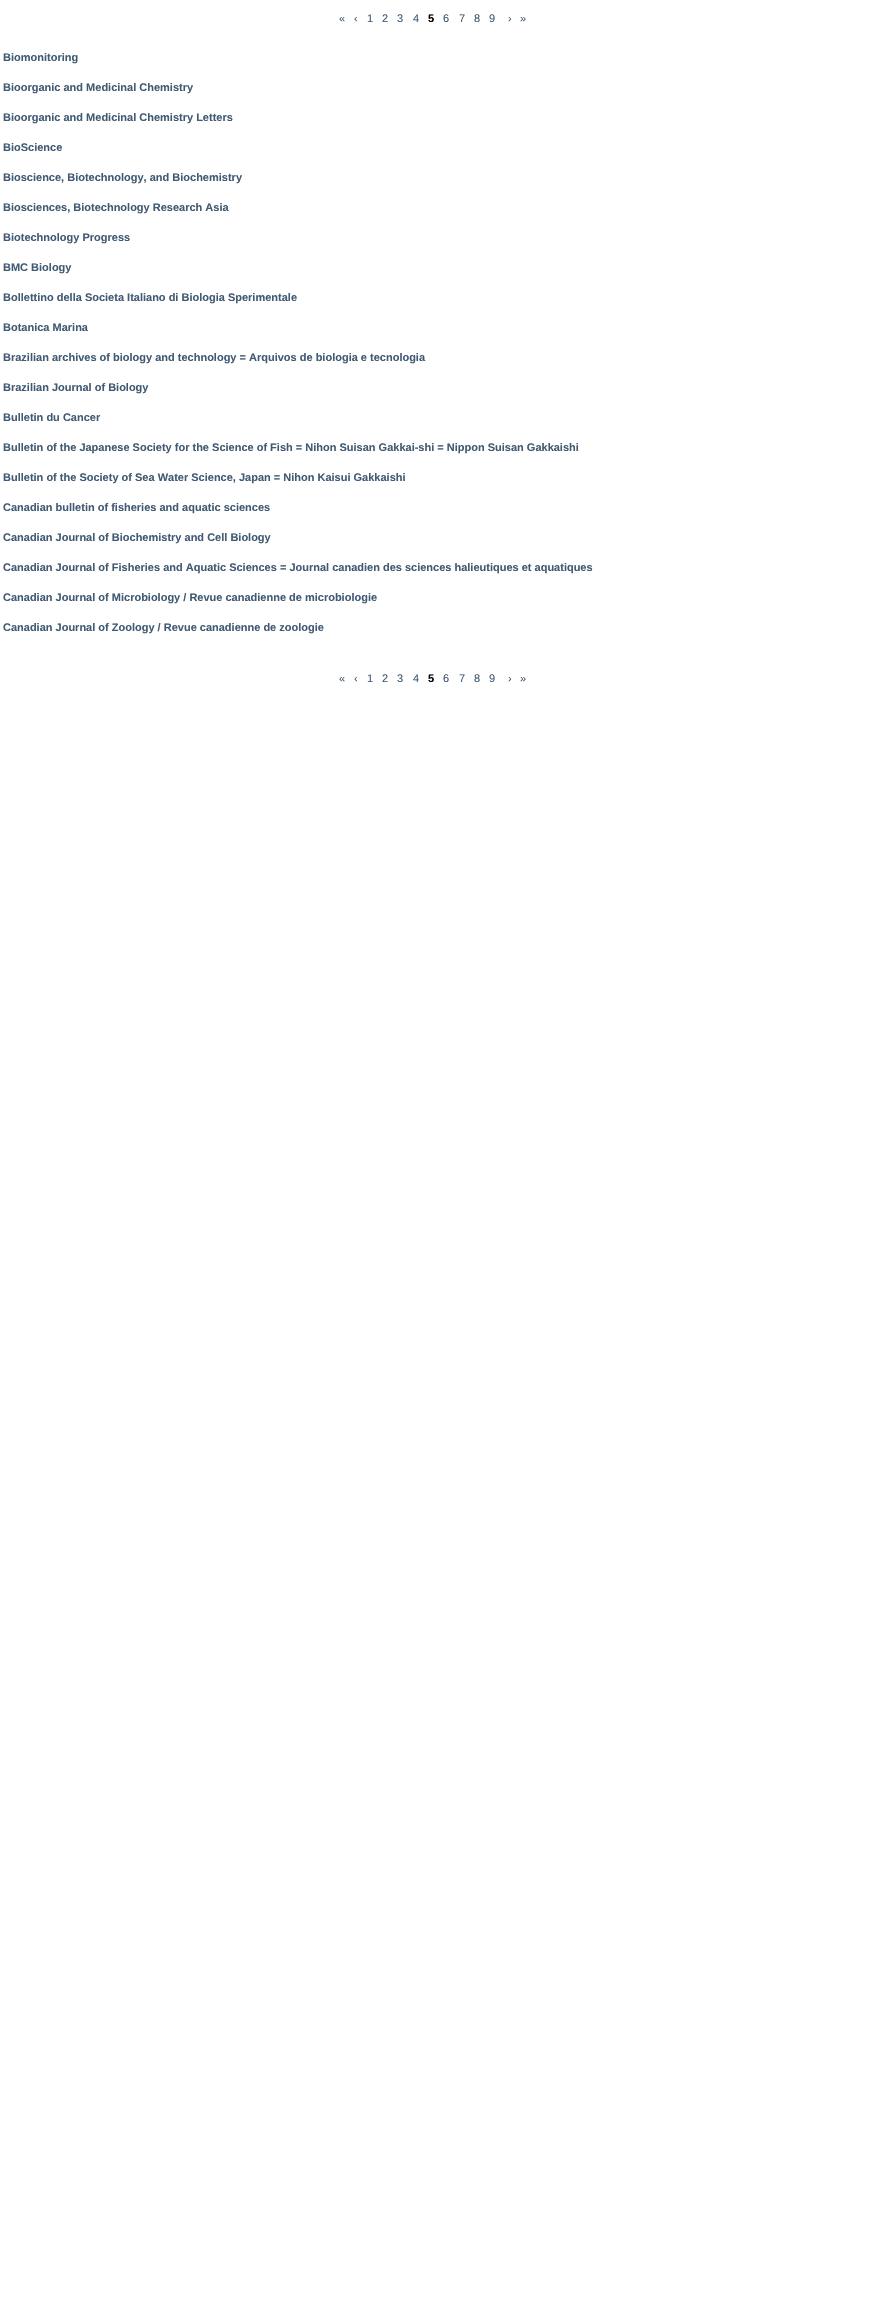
void draw(SkCanvas* canvas) {
  SkPaint paint;
  paint.setAntiAlias(true);
  auto face = [&](const char* family, int weight, float size, bool italic = false) {
    SkFontStyle style(weight, SkFontStyle::kNormal_Width,
      italic ? SkFontStyle::kItalic_Slant : SkFontStyle::kUpright_Slant);
    SkFont result(fontMgr->matchFamilyStyle(family, style), size);
    result.setSubpixel(true);
    return result;
  };
  canvas->clear(0xffffffff);
  auto f0 = face("Liberation Sans", 400, 11);
  paint.setColor(0xff415a73);
  {
    const struct { const char* s; float x, y; } items[] = {
      {"«", 339, 22},
      {"‹", 354, 22},
      {"1", 367, 22},
      {"2", 382, 22},
      {"3", 397, 22},
      {"4", 413, 22},
    };
    for (auto [s, x, y] : items) {
      canvas->drawString(s, x, y, f0, paint);
    }
  }
  auto f1 = face("Liberation Sans", 700, 11);
  paint.setColor(0xff000000);
  canvas->drawString("5", 428, 22, f1, paint);
  paint.setColor(0xff415a73);
  {
    const struct { const char* s; float x, y; } items[] = {
      {"6", 443, 22},
      {"7", 459, 22},
      {"8", 474, 22},
      {"9", 489, 22},
      {"›", 508, 22},
      {"»", 520, 22},
    };
    for (auto [s, x, y] : items) {
      canvas->drawString(s, x, y, f0, paint);
    }
  }
  {
    const struct { const char* s; float x, y; } items[] = {
      {"Biomonitoring", 3, 61},
      {"Bioorganic and Medicinal Chemistry", 3, 91},
      {"Bioorganic and Medicinal Chemistry Letters", 3, 121},
      {"BioScience", 3, 151},
      {"Bioscience, Biotechnology, and Biochemistry", 3, 181},
      {"Biosciences, Biotechnology Research Asia", 3, 211},
      {"Biotechnology Progress", 3, 241},
      {"BMC Biology", 3, 271},
      {"Bollettino della Societa Italiano di Biologia Sperimentale", 3, 301},
      {"Botanica Marina", 3, 331},
      {"Brazilian archives of biology and technology = Arquivos de biologia e tecnologia", 3, 361},
      {"Brazilian Journal of Biology", 3, 391},
      {"Bulletin du Cancer", 3, 421},
      {"Bulletin of the Japanese Society for the Science of Fish = Nihon Suisan Gakkai-shi = Nippon Suisan Gakkaishi", 3, 451},
      {"Bulletin of the Society of Sea Water Science, Japan = Nihon Kaisui Gakkaishi", 3, 481},
      {"Canadian bulletin of fisheries and aquatic sciences", 3, 511},
      {"Canadian Journal of Biochemistry and Cell Biology", 3, 541},
      {"Canadian Journal of Fisheries and Aquatic Sciences = Journal canadien des sciences halieutiques et aquatiques", 3, 571},
      {"Canadian Journal of Microbiology / Revue canadienne de microbiologie", 3, 601},
      {"Canadian Journal of Zoology / Revue canadienne de zoologie", 3, 631},
    };
    for (auto [s, x, y] : items) {
      canvas->drawString(s, x, y, f1, paint);
    }
  }
  {
    const struct { const char* s; float x, y; } items[] = {
      {"«", 339, 682},
      {"‹", 354, 682},
      {"1", 367, 682},
      {"2", 382, 682},
      {"3", 397, 682},
      {"4", 413, 682},
    };
    for (auto [s, x, y] : items) {
      canvas->drawString(s, x, y, f0, paint);
    }
  }
  paint.setColor(0xff000000);
  canvas->drawString("5", 428, 682, f1, paint);
  paint.setColor(0xff415a73);
  {
    const struct { const char* s; float x, y; } items[] = {
      {"6", 443, 682},
      {"7", 459, 682},
      {"8", 474, 682},
      {"9", 489, 682},
      {"›", 508, 682},
      {"»", 520, 682},
    };
    for (auto [s, x, y] : items) {
      canvas->drawString(s, x, y, f0, paint);
    }
  }
}
